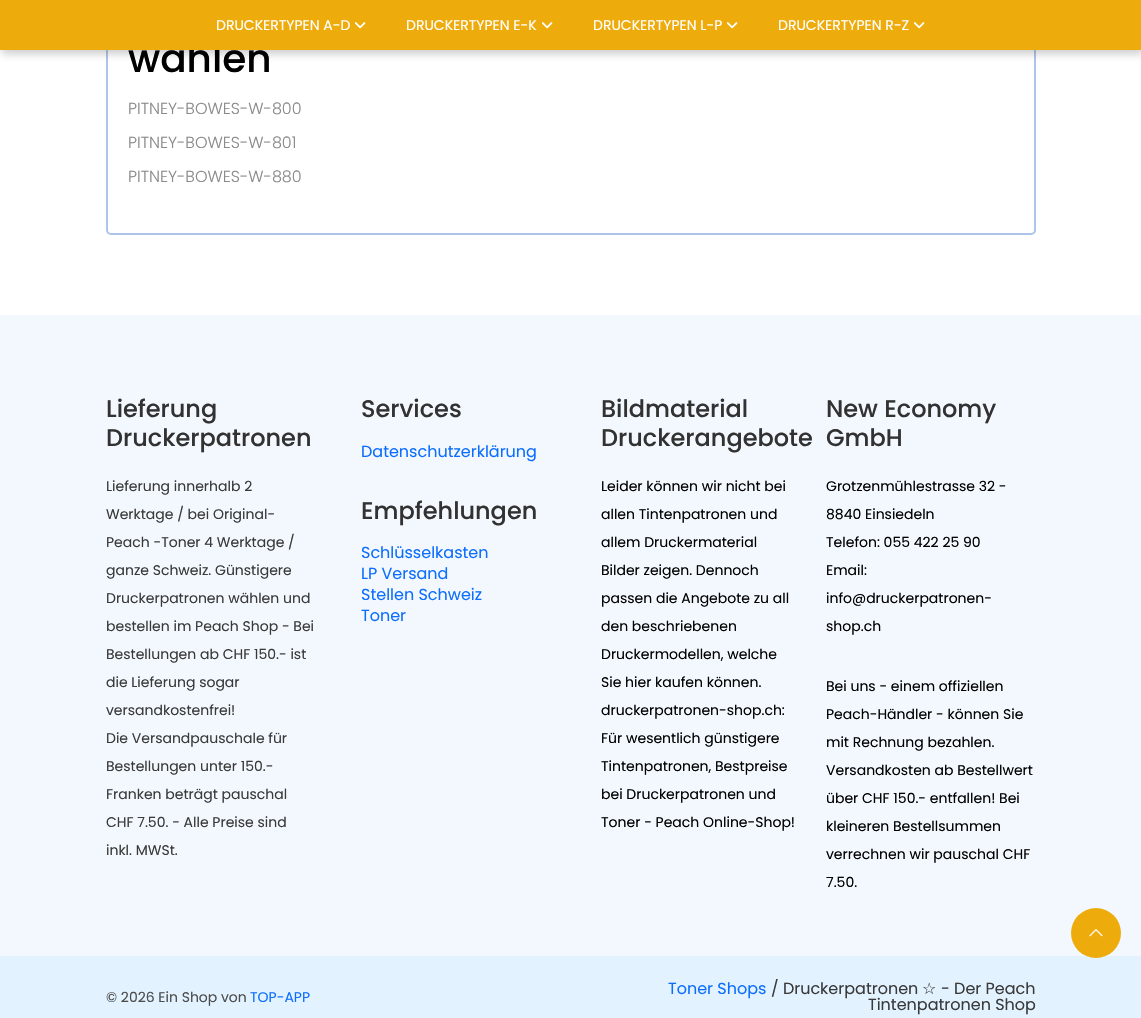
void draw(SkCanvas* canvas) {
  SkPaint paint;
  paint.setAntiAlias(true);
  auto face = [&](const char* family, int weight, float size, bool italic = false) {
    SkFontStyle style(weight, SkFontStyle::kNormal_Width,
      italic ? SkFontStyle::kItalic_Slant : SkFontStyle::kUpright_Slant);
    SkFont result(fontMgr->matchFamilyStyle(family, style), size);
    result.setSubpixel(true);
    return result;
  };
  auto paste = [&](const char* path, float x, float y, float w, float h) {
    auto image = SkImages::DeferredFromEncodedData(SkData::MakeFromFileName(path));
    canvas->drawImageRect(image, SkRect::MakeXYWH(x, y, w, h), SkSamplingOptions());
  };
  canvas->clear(0xffffffff);
  paint.setStroke(true);
  paint.setStrokeWidth(2);
  paint.setColor(0xffacc4e8);
  canvas->drawRoundRect(SkRect::MakeXYWH(107, -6, 928, 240), 4, 4, paint);
  paint.setStroke(false);
  paint.setColor(0x40333333);
  paint.setMaskFilter(SkMaskFilter::MakeBlur(kNormal_SkBlurStyle, 4));
  canvas->drawRect(SkRect::MakeXYWH(2, 4, 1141, 50), paint);
  paint.setMaskFilter(nullptr);
  paint.setColor(0xfff2f8fd);
  canvas->drawRect(SkRect::MakeXYWH(0, 315, 1141, 641), paint);
  paint.setColor(0xffe2f2ff);
  canvas->drawRect(SkRect::MakeXYWH(0, 956, 1141, 62), paint);
  paint.setColor(0xffeeac0c);
  canvas->drawCircle(1096, 933, 25, paint);
  paste("img/2.png", 1089, 929, 14, 8);
  auto f0 = face("Poppins", 500, 39);
  paint.setColor(0xff000000);
  canvas->drawString("wählen", 128, 72, f0, paint);
  paint.setColor(0xffeeac0c);
  canvas->drawRect(SkRect::MakeXYWH(0, 0, 1141, 50), paint);
  paste("img/1.png", 914, 22, 11, 7);
  auto f1 = face("Poppins", 400, 14);
  paint.setColor(0xffffffff);
  canvas->drawString("DRUCKERTYPEN R-Z", 778, 30, f1, paint);
  paste("img/1.png", 727, 22, 11, 7);
  canvas->drawString("DRUCKERTYPEN L-P", 593, 30, f1, paint);
  paste("img/1.png", 542, 22, 11, 7);
  canvas->drawString("DRUCKERTYPEN E-K", 406, 30, f1, paint);
  paste("img/1.png", 355, 22, 11, 7);
  canvas->drawString("DRUCKERTYPEN A-D", 216, 30, f1, paint);
  auto f2 = face("Poppins", 300, 16);
  paint.setColor(0xff8a8a8a);
  {
    const struct { const char* s; float x, y; } items[] = {
      {"PITNEY-BOWES-W-800", 128, 114},
      {"PITNEY-BOWES-W-801", 128, 148},
      {"PITNEY-BOWES-W-880", 128, 182},
    };
    for (auto [s, x, y] : items) {
      canvas->drawString(s, x, y, f2, paint);
    }
  }
  auto f3 = face("Poppins", 500, 24);
  paint.setColor(0xff323232);
  canvas->drawString("Lieferung", 106, 417, f3, paint);
  canvas->drawString("Druckerpatronen", 106, 446, f3, paint);
  paint.setColor(0xff3a3a3a);
  {
    const struct { const char* s; float x, y; } items[] = {
      {"Lieferung innerhalb 2", 106, 491},
      {"Werktage / bei Original-", 106, 519},
      {"Peach -Toner 4 Werktage /", 106, 547},
      {"ganze Schweiz. Günstigere", 106, 575},
      {"Druckerpatronen wählen und", 106, 603},
      {"bestellen im Peach Shop - Bei", 106, 631},
      {"Bestellungen ab CHF 150.- ist", 106, 659},
      {"die Lieferung sogar", 106, 687},
      {"versandkostenfrei!", 106, 715},
      {"Die Versandpauschale für", 106, 743},
      {"Bestellungen unter 150.-", 106, 771},
      {"Franken beträgt pauschal", 106, 799},
      {"CHF 7.50. - Alle Preise sind", 106, 827},
      {"inkl. MWSt.", 106, 855},
    };
    for (auto [s, x, y] : items) {
      canvas->drawString(s, x, y, f1, paint);
    }
  }
  paint.setColor(0xff323232);
  canvas->drawString("Services", 361, 417, f3, paint);
  auto f4 = face("Poppins", 400, 16);
  paint.setColor(0xff0d6efd);
  canvas->drawString("Datenschutzerklärung", 361, 457, f4, paint);
  paint.setColor(0xff323232);
  canvas->drawString("Empfehlungen", 361, 519, f3, paint);
  paint.setColor(0xff0d6efd);
  {
    const struct { const char* s; float x, y; } items[] = {
      {"Schlüsselkasten", 361, 558},
      {"LP Versand", 361, 579},
      {"Stellen Schweiz", 361, 600},
      {"Toner", 361, 621},
    };
    for (auto [s, x, y] : items) {
      canvas->drawString(s, x, y, f4, paint);
    }
  }
  paint.setColor(0xff323232);
  canvas->drawString("Bildmaterial", 601, 417, f3, paint);
  canvas->drawString("Druckerangebote", 601, 446, f3, paint);
  paint.setColor(0xff000000);
  {
    const struct { const char* s; float x, y; } items[] = {
      {"Leider können wir nicht bei", 601, 491},
      {"allen Tintenpatronen und", 601, 519},
      {"allem Druckermaterial", 601, 547},
      {"Bilder zeigen. Dennoch", 601, 575},
      {"passen die Angebote zu all", 601, 603},
      {"den beschriebenen", 601, 631},
      {"Druckermodellen, welche", 601, 659},
      {"Sie hier kaufen können.", 601, 687},
      {"druckerpatronen-shop.ch:", 601, 715},
      {"Für wesentlich günstigere", 601, 743},
      {"Tintenpatronen, Bestpreise", 601, 771},
      {"bei Druckerpatronen und", 601, 799},
      {"Toner - Peach Online-Shop!", 601, 827},
    };
    for (auto [s, x, y] : items) {
      canvas->drawString(s, x, y, f1, paint);
    }
  }
  paint.setColor(0xff323232);
  canvas->drawString("New Economy", 826, 417, f3, paint);
  canvas->drawString("GmbH", 826, 446, f3, paint);
  paint.setColor(0xff000000);
  {
    const struct { const char* s; float x, y; } items[] = {
      {"Grotzenmühlestrasse 32 -", 826, 491},
      {"8840 Einsiedeln", 826, 519},
      {"Telefon: 055 422 25 90", 826, 547},
      {"Email:", 826, 575},
      {"info@druckerpatronen-", 826, 603},
      {"shop.ch", 826, 631},
      {"Bei uns - einem offiziellen", 826, 691},
      {"Peach-Händler - können Sie", 826, 719},
      {"mit Rechnung bezahlen.", 826, 747},
      {"Versandkosten ab Bestellwert", 826, 775},
      {"über CHF 150.- entfallen! Bei", 826, 803},
      {"kleineren Bestellsummen", 826, 831},
      {"verrechnen wir pauschal CHF", 826, 859},
      {"7.50.", 826, 887},
    };
    for (auto [s, x, y] : items) {
      canvas->drawString(s, x, y, f1, paint);
    }
  }
  paint.setColor(0xff4d4d4d);
  canvas->drawString("© 2026 Ein Shop von", 106, 1002, f1, paint);
  paint.setColor(0xff0d6efd);
  canvas->drawString("TOP-APP", 250, 1002, f1, paint);
  canvas->drawString("Toner Shops", 668, 994, f4, paint);
  paint.setColor(0xff3a3a3a);
  canvas->drawString("/ Druckerpatronen", 771, 994, f4, paint);
  auto f5 = face("DejaVu Sans", 400, 16);
  canvas->drawString("☆", 922, 994, f5, paint);
  canvas->drawString("- Der Peach", 941, 994, f4, paint);
  canvas->drawString("Tintenpatronen Shop", 868, 1010, f4, paint);
}
